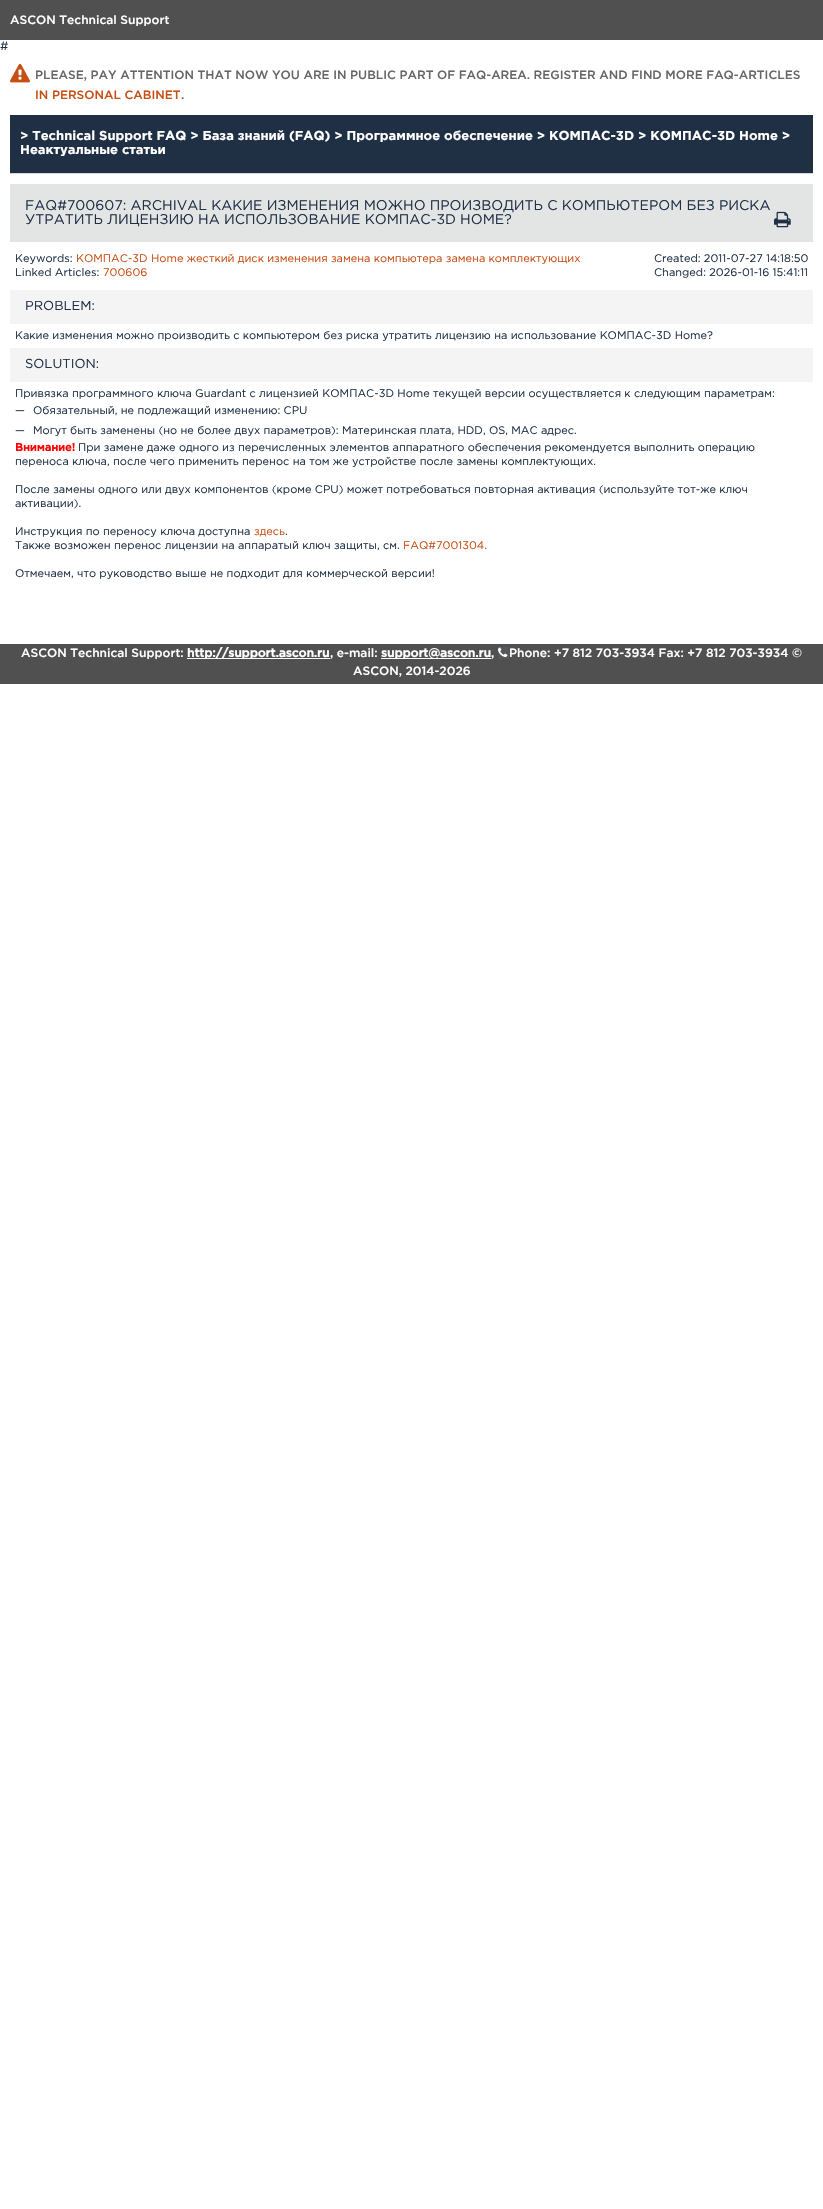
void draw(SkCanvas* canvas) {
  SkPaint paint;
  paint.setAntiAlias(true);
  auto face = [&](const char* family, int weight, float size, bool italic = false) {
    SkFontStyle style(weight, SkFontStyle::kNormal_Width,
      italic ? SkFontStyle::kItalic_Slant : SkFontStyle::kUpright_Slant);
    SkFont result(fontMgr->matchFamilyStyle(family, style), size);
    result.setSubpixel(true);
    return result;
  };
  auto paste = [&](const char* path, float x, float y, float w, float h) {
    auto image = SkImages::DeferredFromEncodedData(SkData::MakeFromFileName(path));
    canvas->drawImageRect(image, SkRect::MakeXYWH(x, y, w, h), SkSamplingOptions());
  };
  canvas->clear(0xffffffff);
  paint.setColor(0xff505050);
  canvas->drawRect(SkRect::MakeXYWH(0, 0, 823, 40), paint);
  paste("img/1.png", 10, 63, 20, 20);
  {
    const struct { float x, y, w, h; SkColor color; } items[] = {
      {10, 115, 803, 58, 0xff1f3045},
      {10, 173, 803, 1, 0xffd6d6d6},
      {10, 184, 803, 58, 0xffe3e4e4},
    };
    for (auto [x, y, w, h, color] : items) {
      paint.setColor(color);
      canvas->drawRect(SkRect::MakeXYWH(x, y, w, h), paint);
    }
  }
  paste("img/2.png", 774, 211, 17, 17);
  {
    const struct { float x, y, w, h; SkColor color; } items[] = {
      {10, 290, 803, 34, 0xfff4f4f4},
      {10, 348, 803, 34, 0xfff4f4f4},
      {0, 644, 823, 40, 0xff505050},
      {187, 658, 143, 1, 0xffffffff},
      {381, 658, 110, 1, 0xffffffff},
      {498, 647, 11, 12, 0xff55585b},
    };
    for (auto [x, y, w, h, color] : items) {
      paint.setColor(color);
      canvas->drawRect(SkRect::MakeXYWH(x, y, w, h), paint);
    }
  }
  paste("img/3.png", 498, 647, 10, 10);
  auto f0 = face("Gotham", 500, 12);
  paint.setColor(0xffffffff);
  canvas->drawString("ASCON Technical Support", 10, 24, f0, paint);
  auto f1 = face("Gotham", 400, 12);
  paint.setColor(0xff1f3045);
  canvas->drawString("#", 0, 50, f1, paint);
  paint.setColor(0xff666666);
  canvas->drawString("PLEASE, PAY ATTENTION THAT NOW YOU ARE IN PUBLIC PART OF FAQ-AREA. REGISTER AND FIND MORE FAQ-ARTICLES", 35, 79, f0, paint);
  paint.setColor(0xffc64f15);
  canvas->drawString("IN PERSONAL CABINET", 35, 99, f0, paint);
  paint.setColor(0xff666666);
  canvas->drawString(".", 181, 99, f0, paint);
  auto f2 = face("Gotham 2", 700, 13);
  paint.setColor(0xffffffff);
  canvas->drawString("> Technical Support FAQ > База знаний (FAQ) > Программное обеспечение > КОМПАС-3D > КОМПАС-3D Home >", 20, 140, f2, paint);
  canvas->drawString("Неактуальные статьи", 20, 154, f2, paint);
  auto f3 = face("Gotham", 400, 14);
  paint.setColor(0xff1f3045);
  canvas->drawString("FAQ#700607: ARCHIVAL КАКИЕ ИЗМЕНЕНИЯ МОЖНО ПРОИЗВОДИТЬ С КОМПЬЮТЕРОМ БЕЗ РИСКА", 25, 210, f3, paint);
  canvas->drawString("УТРАТИТЬ ЛИЦЕНЗИЮ НА ИСПОЛЬЗОВАНИЕ КОМПАС-3D HOME?", 25, 224, f3, paint);
  auto f4 = face("Gotham", 400, 11);
  canvas->drawString("Keywords:", 15, 262, f4, paint);
  paint.setColor(0xffc64f15);
  canvas->drawString("КОМПАС-3D Home жесткий диск изменения замена компьютера замена комплектующих", 76, 262, f4, paint);
  paint.setColor(0xff1f3045);
  canvas->drawString("Created: 2011-07-27 14:18:50", 654, 262, f4, paint);
  canvas->drawString("Linked Articles:", 15, 276, f4, paint);
  paint.setColor(0xffc64f15);
  canvas->drawString("700606", 103, 276, f4, paint);
  paint.setColor(0xff1f3045);
  canvas->drawString("Changed: 2026-01-16 15:41:11", 654, 276, f4, paint);
  auto f5 = face("Gotham", 400, 13);
  canvas->drawString("PROBLEM:", 25, 310, f5, paint);
  canvas->drawString("Какие изменения можно производить с компьютером без риска утратить лицензию на использование КОМПАС-3D Home?", 15, 339, f4, paint);
  canvas->drawString("SOLUTION:", 25, 368, f5, paint);
  {
    const struct { const char* s; float x, y; } items[] = {
      {"Привязка программного ключа Guardant с лицензией КОМПАС-3D Home текущей версии осуществляется к следующим параметрам:", 15, 397},
      {"—", 15, 414},
      {"Обязательный, не подлежащий изменению: CPU", 33, 414},
      {"—", 15, 434},
      {"Могут быть заменены (но не более двух параметров): Материнская плата, HDD, OS, MAC адрес.", 33, 434},
    };
    for (auto [s, x, y] : items) {
      canvas->drawString(s, x, y, f4, paint);
    }
  }
  auto f6 = face("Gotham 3", 700, 11);
  paint.setColor(0xffff0000);
  canvas->drawString("Внимание!", 15, 451, f6, paint);
  paint.setColor(0xff1f3045);
  {
    const struct { const char* s; float x, y; } items[] = {
      {"При замене даже одного из перечисленных элементов аппаратного обеспечения рекомендуется выполнить операцию", 78, 451},
      {"переноса ключа, после чего применить перенос на том же устройстве после замены комплектующих.", 15, 465},
      {"После замены одного или двух компонентов (кроме CPU) может потребоваться повторная активация (используйте тот-же ключ", 15, 493},
      {"активации).", 15, 507},
      {"Инструкция по переносу ключа доступна", 15, 535},
    };
    for (auto [s, x, y] : items) {
      canvas->drawString(s, x, y, f4, paint);
    }
  }
  paint.setColor(0xffc64f15);
  canvas->drawString("здесь", 254, 535, f4, paint);
  paint.setColor(0xff1f3045);
  canvas->drawString(".", 285, 535, f4, paint);
  canvas->drawString("Также возможен перенос лицензии на аппаратый ключ защиты, см.", 15, 549, f4, paint);
  paint.setColor(0xffc64f15);
  canvas->drawString("FAQ#7001304.", 403, 549, f4, paint);
  paint.setColor(0xff1f3045);
  canvas->drawString("Отмечаем, что руководство выше не подходит для коммерческой версии!", 15, 577, f4, paint);
  paint.setColor(0xffffffff);
  canvas->drawString("ASCON Technical Support:", 21, 657, f0, paint);
  auto f7 = face("Gotham", 700, 12);
  canvas->drawString("http://support.ascon.ru", 187, 657, f7, paint);
  canvas->drawString(", e-mail:", 330, 657, f0, paint);
  canvas->drawString("support@ascon.ru", 381, 657, f7, paint);
  {
    const struct { const char* s; float x, y; } items[] = {
      {",", 491, 657},
      {"Phone: +7 812 703-3934 Fax: +7 812 703-3934 ©", 509, 657},
      {"ASCON, 2014-2026", 353, 675},
    };
    for (auto [s, x, y] : items) {
      canvas->drawString(s, x, y, f0, paint);
    }
  }
}
